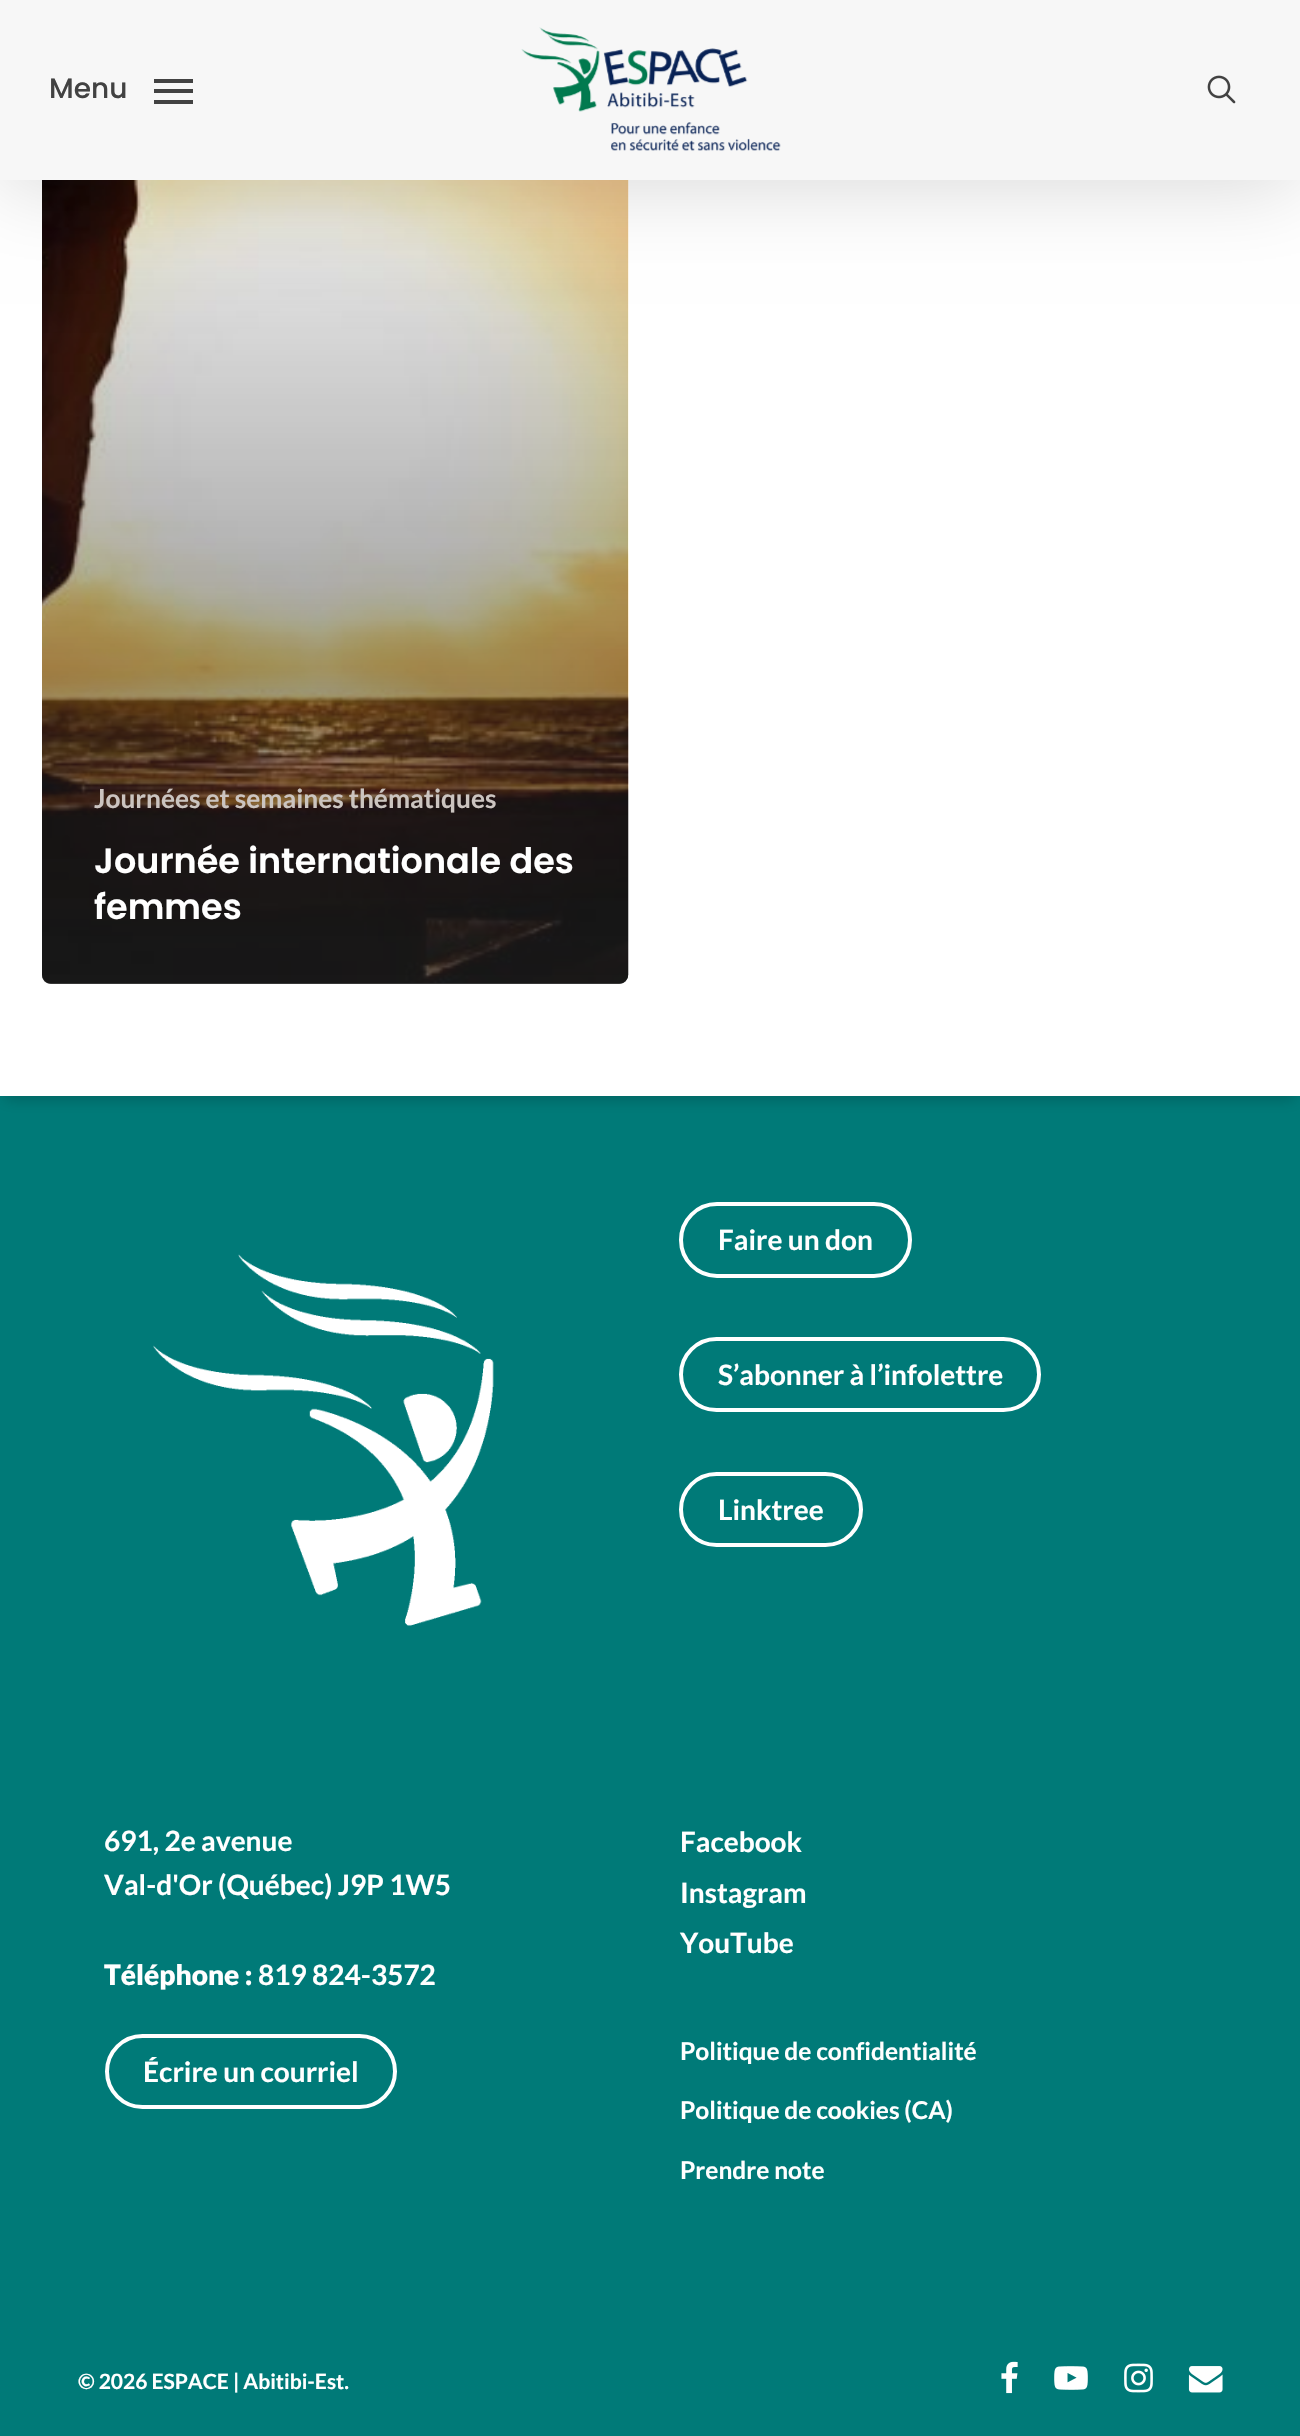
void draw(SkCanvas* canvas) {
  SkPaint paint;
  paint.setAntiAlias(true);
  auto face = [&](const char* family, int weight, float size, bool italic = false) {
    SkFontStyle style(weight, SkFontStyle::kNormal_Width,
      italic ? SkFontStyle::kItalic_Slant : SkFontStyle::kUpright_Slant);
    SkFont result(fontMgr->matchFamilyStyle(family, style), size);
    result.setSubpixel(true);
    return result;
  };
  auto paste = [&](const char* path, float x, float y, float w, float h) {
    auto image = SkImages::DeferredFromEncodedData(SkData::MakeFromFileName(path));
    canvas->drawImageRect(image, SkRect::MakeXYWH(x, y, w, h), SkSamplingOptions());
  };
  auto shape = [&](const char* data, bool evenOdd = false) {
    SkPath result = *SkParsePath::FromSVGString(data);
    if (evenOdd) result.setFillType(SkPathFillType::kEvenOdd);
    return result;
  };
  canvas->clear(0xff007a78);
  paint.setColor(0x33000000);
  paint.setMaskFilter(SkMaskFilter::MakeBlur(kNormal_SkBlurStyle, 7));
  canvas->drawRect(SkRect::MakeXYWH(5, -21, 1290, 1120), paint);
  paint.setMaskFilter(nullptr);
  paint.setColor(0xffffffff);
  canvas->drawRect(SkRect::MakeXYWH(0, 180, 1300, 916), paint);
  paint.setColor(0xffb3b3b3);
  canvas->drawRoundRect(SkRect::MakeXYWH(42, -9, 586, 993), 9, 9, paint);
  paste("img/3.png", 42, 180, 587, 804);
  {
    const SkColor colors[] = {0x00232323, 0xa6232323};
    const float stops[] = {0, 1};
    const SkPoint ends[] = {{337, 70}, {337, 989}};
    paint.setShader(SkGradientShader::MakeLinear(ends, colors, stops, 2, SkTileMode::kClamp));
    paint.setAlpha(255);
  }
  canvas->drawPath(shape("M42 70H628V975C628 980 624 984 619 984H51C46 984 42 980 42 975Z"), paint);
  paint.setShader(nullptr);
  paint.setColor(0x26000000);
  paint.setMaskFilter(SkMaskFilter::MakeBlur(kNormal_SkBlurStyle, 39.5f));
  canvas->drawRect(SkRect::MakeXYWH(0, -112, 1300, 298), paint);
  paint.setMaskFilter(nullptr);
  {
    const struct { float x, y, w, h; SkColor color; } items[] = {
      {0, 0, 1300, 180, 0xfff7f7f7},
      {154, 79, 39, 4, 0xff424242},
      {154, 100, 39, 4, 0xff424242},
      {154, 89, 39, 4, 0xff424242},
    };
    for (auto [x, y, w, h, color] : items) {
      paint.setColor(color);
      canvas->drawRect(SkRect::MakeXYWH(x, y, w, h), paint);
    }
  }
  paste("img/1.png", 1207, 75, 29, 29);
  paste("img/2.png", 521, 27, 260, 124);
  paste("img/4.png", 153, 1254, 341, 372);
  paint.setStroke(true);
  paint.setStrokeWidth(4);
  paint.setColor(0xffffffff);
  canvas->drawRoundRect(SkRect::MakeXYWH(681, 1204, 229, 72), 36, 36, paint);
  canvas->drawRoundRect(SkRect::MakeXYWH(681, 1339, 358, 71), 35.5f, 35.5f, paint);
  canvas->drawRoundRect(SkRect::MakeXYWH(681, 1474, 180, 71), 35.5f, 35.5f, paint);
  canvas->drawRoundRect(SkRect::MakeXYWH(107, 2036, 288, 71), 35.5f, 35.5f, paint);
  paste("img/5.png", 1001, 2361, 17, 33);
  paste("img/6.png", 1054, 2366, 34, 24);
  paste("img/7.png", 1124, 2363, 29, 30);
  paste("img/8.png", 1188, 2366, 35, 27);
  auto f0 = face("Poppins", 500, 28);
  paint.setStroke(false);
  paint.setColor(0xff424242);
  canvas->drawString("Menu", 49, 98, f0, paint);
  auto f1 = face("Lato", 700, 26.25f);
  paint.setColor(0xffcbc4c0);
  canvas->drawString("Journées et semaines thématiques", 94, 808, f1, paint);
  auto f2 = face("Poppins", 600, 35);
  paint.setColor(0xffffffff);
  canvas->drawString("Journée internationale des", 94, 873, f2, paint);
  canvas->drawString("femmes", 94, 919, f2, paint);
  auto f3 = face("Lato", 700, 28);
  {
    const struct { const char* s; float x, y; } items[] = {
      {"Faire un don", 718, 1250},
      {"S’abonner à l’infolettre", 718, 1385},
      {"Linktree", 718, 1520},
      {"691, 2e avenue", 104, 1851},
      {"Val-d'Or (Québec) J9P 1W5", 104, 1895},
    };
    for (auto [s, x, y] : items) {
      canvas->drawString(s, x, y, f3, paint);
    }
  }
  auto f4 = face("Lato", 900, 28);
  canvas->drawString("Téléphone :", 104, 1985, f4, paint);
  {
    const struct { const char* s; float x, y; } items[] = {
      {"819 824-3572", 258, 1985},
      {"Écrire un courriel", 143, 2082},
      {"Facebook", 680, 1852},
      {"Instagram", 680, 1903},
      {"YouTube", 680, 1953},
    };
    for (auto [s, x, y] : items) {
      canvas->drawString(s, x, y, f3, paint);
    }
  }
  auto f5 = face("Lato", 700, 24.5f);
  {
    const struct { const char* s; float x, y; } items[] = {
      {"Politique de confidentialité", 680, 2060},
      {"Politique de cookies (CA)", 680, 2119},
      {"Prendre note", 680, 2179},
    };
    for (auto [s, x, y] : items) {
      canvas->drawString(s, x, y, f5, paint);
    }
  }
  auto f6 = face("Lato", 700, 21);
  canvas->drawString("© 2026 ESPACE | Abitibi-Est.", 78, 2389, f6, paint);
}
